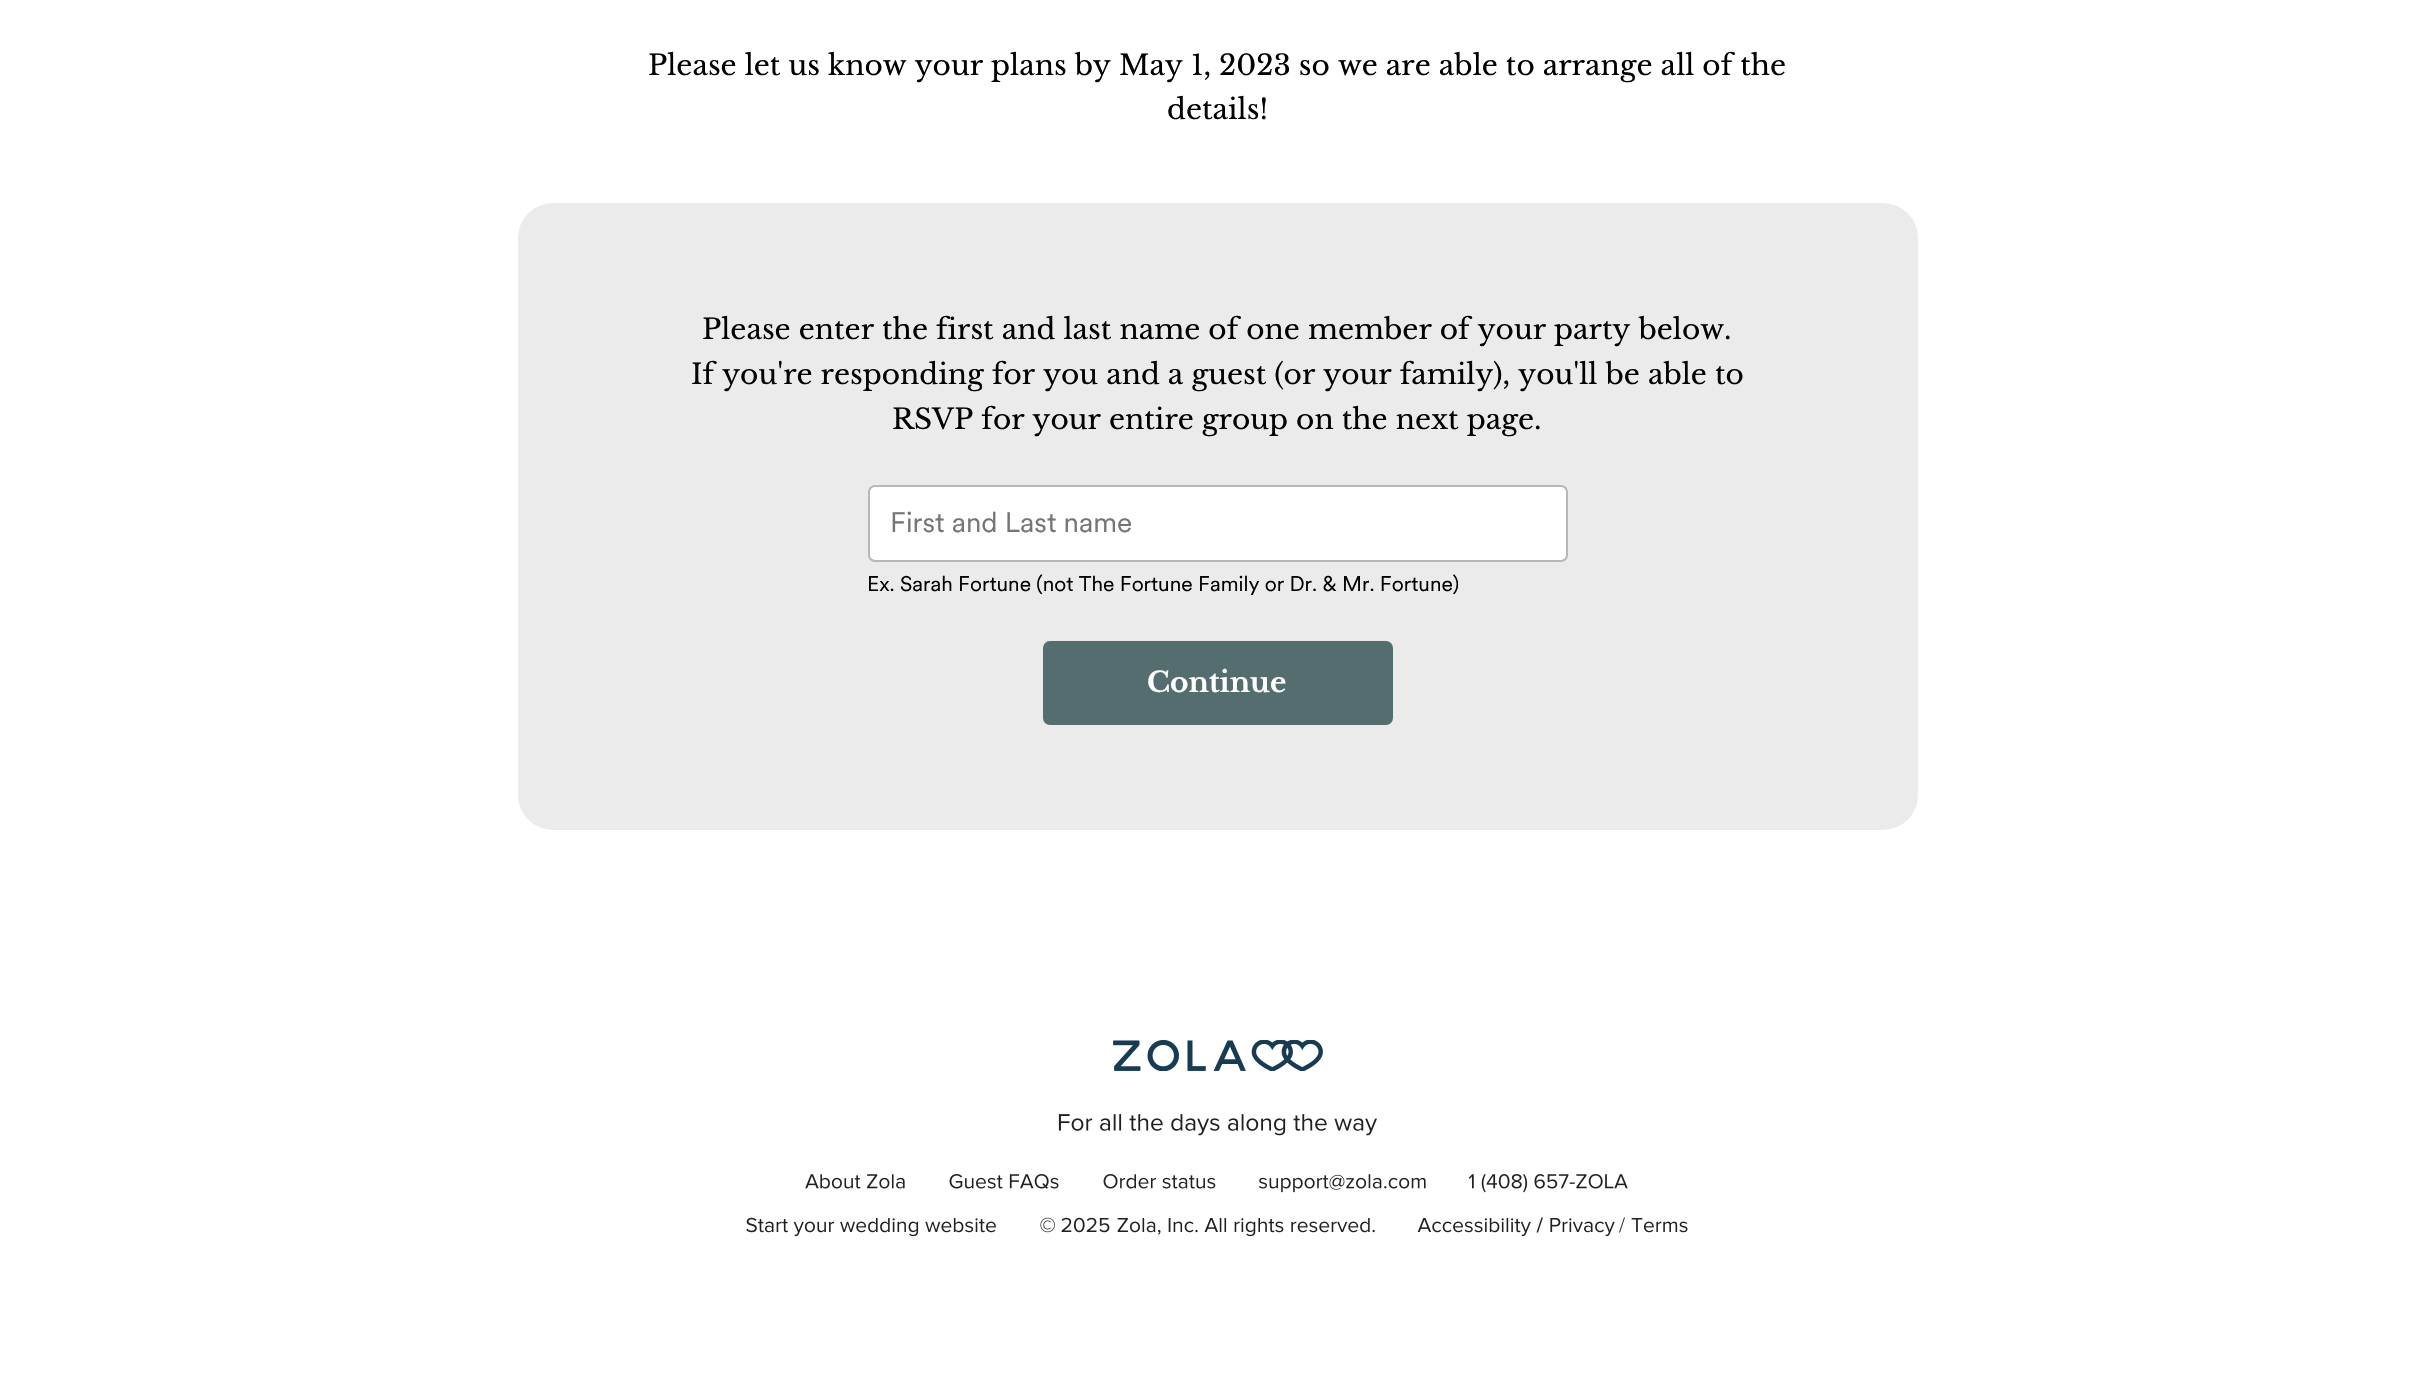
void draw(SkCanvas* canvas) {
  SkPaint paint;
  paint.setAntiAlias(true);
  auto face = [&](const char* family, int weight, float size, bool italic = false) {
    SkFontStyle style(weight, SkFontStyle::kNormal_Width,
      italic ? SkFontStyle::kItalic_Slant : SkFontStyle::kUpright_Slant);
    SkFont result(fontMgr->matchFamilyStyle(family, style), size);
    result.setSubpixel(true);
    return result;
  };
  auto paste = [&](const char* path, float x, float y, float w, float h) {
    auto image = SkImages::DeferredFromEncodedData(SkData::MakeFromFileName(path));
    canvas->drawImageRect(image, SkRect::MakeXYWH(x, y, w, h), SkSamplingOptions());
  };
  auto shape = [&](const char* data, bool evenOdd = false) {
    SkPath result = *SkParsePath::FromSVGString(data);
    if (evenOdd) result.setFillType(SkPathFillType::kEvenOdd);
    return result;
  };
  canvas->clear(0xffffffff);
  paint.setColor(0xffebebeb);
  canvas->drawRoundRect(SkRect::MakeXYWH(518, 203, 1400, 627), 35, 35, paint);
  paint.setColor(0xffffffff);
  canvas->drawRoundRect(SkRect::MakeXYWH(869, 486, 698, 75), 6, 6, paint);
  paint.setStroke(true);
  paint.setStrokeWidth(2);
  paint.setColor(0xffb7b7b7);
  canvas->drawRoundRect(SkRect::MakeXYWH(869, 486, 698, 75), 6, 6, paint);
  paint.setStroke(false);
  paint.setColor(0xff546e6f);
  canvas->drawRoundRect(SkRect::MakeXYWH(1043, 641, 350, 84), 7, 7, paint);
  paste("img/1.png", 1113, 1040, 210, 31);
  paste("img/2.png", 1058, 1114, 319, 22);
  paste("img/3.png", 805, 1174, 100, 15);
  paste("img/4.png", 949, 1174, 110, 15);
  paste("img/5.png", 1103, 1174, 113, 15);
  paste("img/6.png", 1259, 1174, 167, 19);
  paste("img/7.png", 1468, 1174, 160, 19);
  paste("img/8.png", 746, 1217, 250, 20);
  paste("img/9.png", 1040, 1217, 15, 16);
  paste("img/10.png", 1061, 1217, 49, 16);
  paste("img/11.png", 1117, 1218, 258, 19);
  paste("img/12.png", 1417, 1218, 114, 19);
  paint.setColor(0xff21201f);
  canvas->drawPath(shape("M1538 1232.5L1543 1217.5H1541.5L1536.5 1232.5Z"), paint);
  paste("img/13.png", 1550, 1218, 65, 19);
  canvas->drawPath(shape("M1620 1232.5L1625 1217.5H1624L1619 1232.5Z"), paint);
  paste("img/14.png", 1631, 1218, 57, 15);
  auto f0 = face("Libre Baskerville", 400, 28);
  paint.setColor(0xff000000);
  {
    const struct { const char* s; float x, y; } items[] = {
      {"Please let us know your plans by May 1, 2023 so we are able to arrange all of the", 648, 75},
      {"details!", 1167, 119},
      {"Please enter the first and last name of one member of your party below.", 702, 339},
      {"If you're responding for you and a guest (or your family), you'll be able to", 691, 384},
      {"RSVP for your entire group on the next page.", 892, 429},
    };
    for (auto [s, x, y] : items) {
      canvas->drawString(s, x, y, f0, paint);
    }
  }
  auto f1 = face("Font", 400, 28);
  paint.setColor(0xff757575);
  canvas->drawString("First and Last name", 890, 532, f1, paint);
  auto f2 = face("Font", 400, 21);
  paint.setColor(0xff000000);
  canvas->drawString("Ex. Sarah Fortune (not The Fortune Family or Dr. & Mr. Fortune)", 867, 591, f2, paint);
  auto f3 = face("Libre Baskerville", 700, 28);
  paint.setColor(0xffffffff);
  canvas->drawString("Continue", 1147, 692, f3, paint);
}
